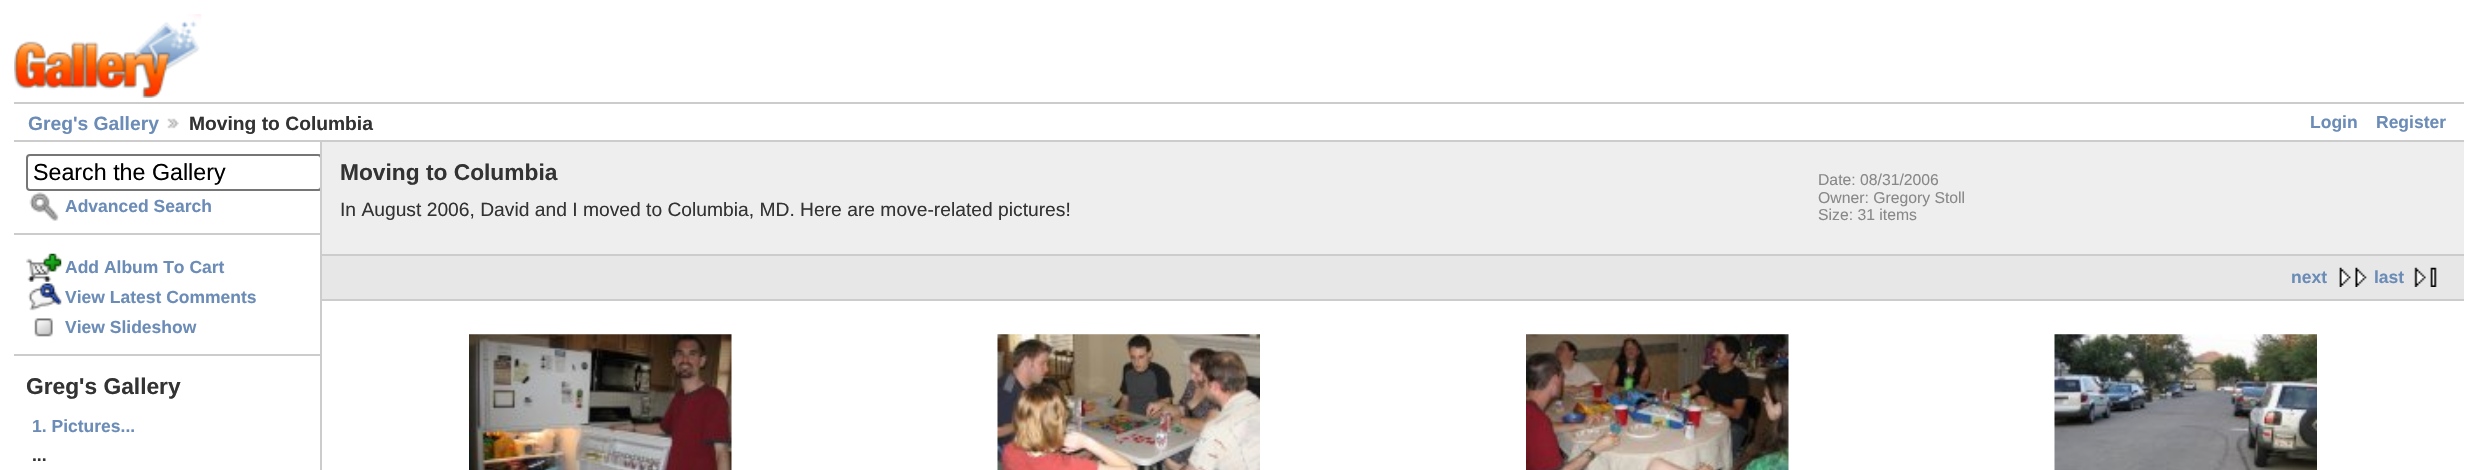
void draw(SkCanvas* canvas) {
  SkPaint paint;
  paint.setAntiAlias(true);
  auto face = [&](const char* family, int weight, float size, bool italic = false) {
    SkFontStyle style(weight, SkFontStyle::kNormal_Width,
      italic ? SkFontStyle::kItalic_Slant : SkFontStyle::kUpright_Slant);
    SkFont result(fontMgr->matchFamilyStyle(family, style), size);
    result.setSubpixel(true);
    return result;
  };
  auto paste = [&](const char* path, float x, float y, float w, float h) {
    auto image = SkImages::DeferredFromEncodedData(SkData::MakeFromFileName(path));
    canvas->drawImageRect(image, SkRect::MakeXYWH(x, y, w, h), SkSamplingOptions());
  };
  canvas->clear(0xffffffff);
  paste("img/1.png", 14, 14, 188, 84);
  paint.setColor(0xffcccccc);
  canvas->drawRect(SkRect::MakeXYWH(14, 102, 2450, 2), paint);
  canvas->drawRect(SkRect::MakeXYWH(14, 140, 2450, 2), paint);
  paste("img/2.png", 167, 118, 12, 11);
  canvas->drawRect(SkRect::MakeXYWH(320, 142, 2, 328), paint);
  canvas->drawRect(SkRect::MakeXYWH(14, 233, 306, 2), paint);
  canvas->save();
  canvas->clipRect(SkRect::MakeXYWH(14, 142, 306, 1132));
  paint.setStroke(true);
  paint.setStrokeWidth(2);
  paint.setColor(0xff767676);
  canvas->drawRoundRect(SkRect::MakeXYWH(27, 155, 294, 35), 3, 3, paint);
  canvas->restore();
  paste("img/3.png", 29, 192, 30, 29);
  paint.setStroke(false);
  paint.setColor(0xffcccccc);
  canvas->drawRect(SkRect::MakeXYWH(14, 354, 306, 2), paint);
  paste("img/4.png", 26, 253, 36, 29);
  paste("img/5.png", 27, 283, 35, 28);
  paste("img/6.png", 34, 318, 19, 19);
  {
    const struct { float x, y, w, h; SkColor color; } items[] = {
      {322, 142, 2142, 112, 0xffeeeeee},
      {322, 254, 2142, 2, 0xffcccccc},
      {322, 256, 2142, 43, 0xffe7e7e7},
      {322, 299, 2142, 2, 0xffcccccc},
    };
    for (auto [x, y, w, h, color] : items) {
      paint.setColor(color);
      canvas->drawRect(SkRect::MakeXYWH(x, y, w, h), paint);
    }
  }
  paste("img/7.png", 2339, 267, 28, 20);
  paste("img/8.png", 2414, 267, 23, 20);
  paste("img/9.png", 469, 334, 263, 136);
  paste("img/10.png", 997, 334, 263, 136);
  paste("img/11.png", 1526, 334, 263, 136);
  paste("img/12.png", 2054, 334, 263, 136);
  auto f0 = face("Liberation Sans", 700, 19.25f);
  paint.setColor(0xff6b8cb7);
  canvas->drawString("Greg's Gallery", 28, 130, f0, paint);
  paint.setColor(0xff333333);
  canvas->drawString("Moving to Columbia", 189, 130, f0, paint);
  auto f1 = face("Liberation Sans", 700, 17.5f);
  paint.setColor(0xff6b8cb7);
  canvas->drawString("Login", 2310, 128, f1, paint);
  canvas->drawString("Register", 2376, 128, f1, paint);
  auto f2 = face("Liberation Sans", 400, 23.25f);
  paint.setColor(0xff000000);
  canvas->drawString("Search the Gallery", 33, 180, f2, paint);
  paint.setColor(0xff6b8cb7);
  {
    const struct { const char* s; float x, y; } items[] = {
      {"Advanced Search", 65, 212},
      {"Add Album To Cart", 65, 273},
      {"View Latest Comments", 65, 303},
      {"View Slideshow", 65, 333},
    };
    for (auto [s, x, y] : items) {
      canvas->drawString(s, x, y, f1, paint);
    }
  }
  auto f3 = face("Liberation Sans", 700, 22.75f);
  paint.setColor(0xff333333);
  canvas->drawString("Greg's Gallery", 26, 394, f3, paint);
  paint.setColor(0xff6b8cb7);
  canvas->drawString("1. Pictures...", 32, 432, f1, paint);
  paint.setColor(0xff333333);
  canvas->drawString("...", 32, 461, f1, paint);
  canvas->drawString("Moving to Columbia", 340, 180, f3, paint);
  auto f4 = face("Liberation Sans", 400, 19.25f);
  canvas->drawString("In August 2006, David and I moved to Columbia, MD. Here are move-related pictures!", 340, 216, f4, paint);
  auto f5 = face("Liberation Sans", 400, 15.75f);
  paint.setColor(0xff888888);
  {
    const struct { const char* s; float x, y; } items[] = {
      {"Date: 08/31/2006", 1818, 185},
      {"Owner: Gregory Stoll", 1818, 203},
      {"Size: 31 items", 1818, 220},
    };
    for (auto [s, x, y] : items) {
      canvas->drawString(s, x, y, f5, paint);
    }
  }
  paint.setColor(0xff6b8cb7);
  canvas->drawString("next", 2291, 283, f1, paint);
  canvas->drawString("last", 2374, 283, f1, paint);
}
